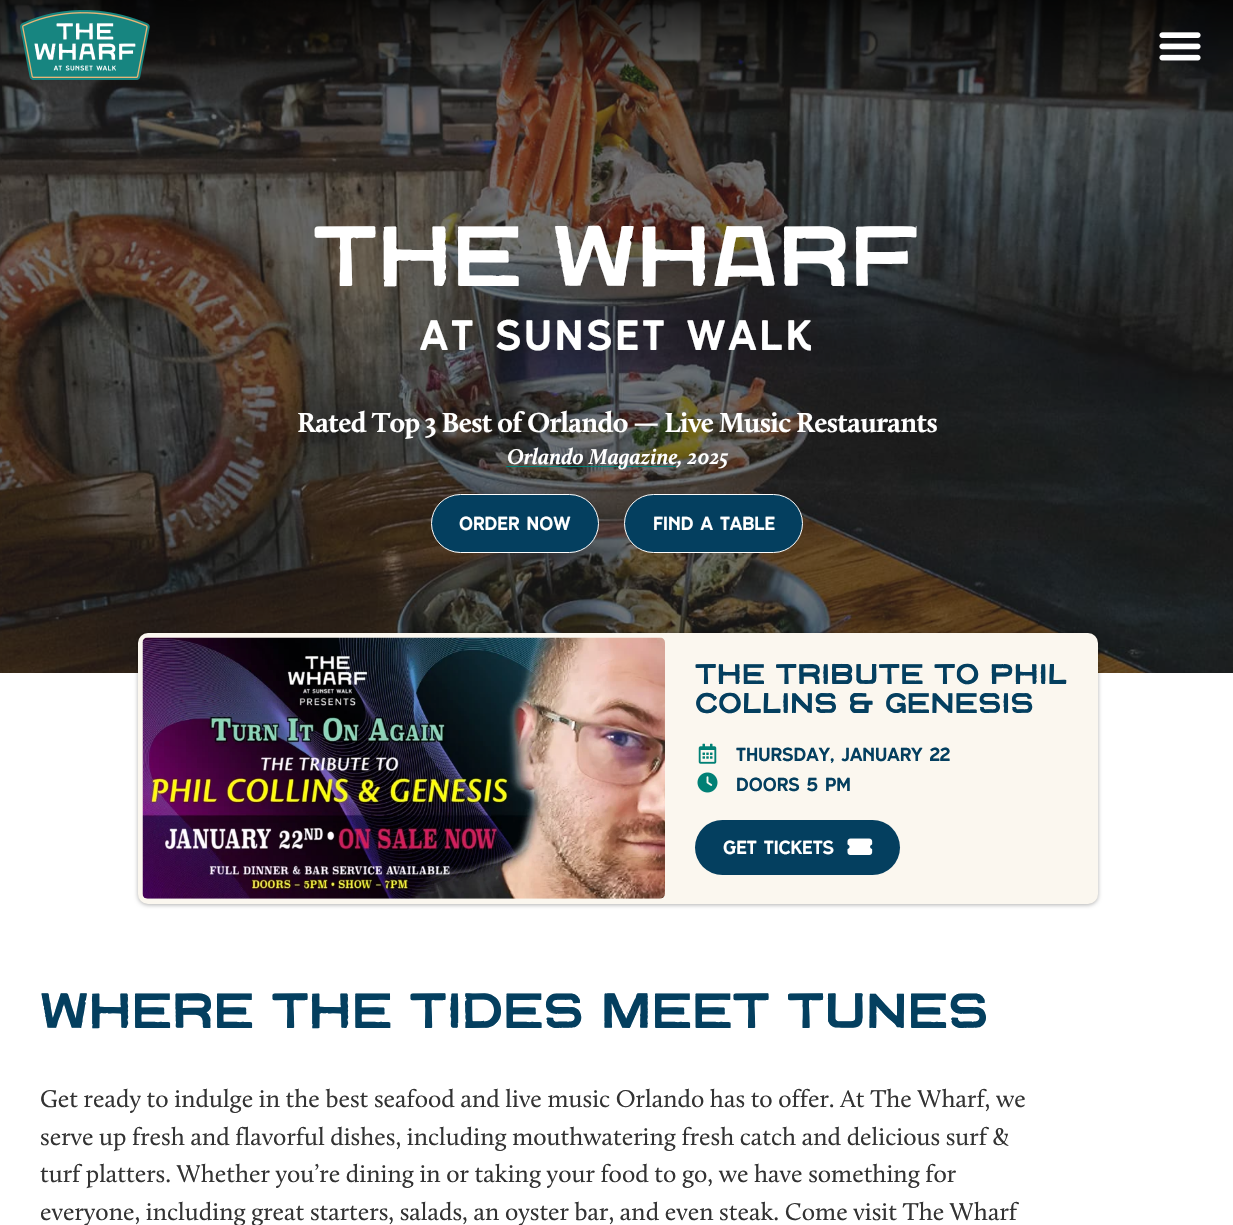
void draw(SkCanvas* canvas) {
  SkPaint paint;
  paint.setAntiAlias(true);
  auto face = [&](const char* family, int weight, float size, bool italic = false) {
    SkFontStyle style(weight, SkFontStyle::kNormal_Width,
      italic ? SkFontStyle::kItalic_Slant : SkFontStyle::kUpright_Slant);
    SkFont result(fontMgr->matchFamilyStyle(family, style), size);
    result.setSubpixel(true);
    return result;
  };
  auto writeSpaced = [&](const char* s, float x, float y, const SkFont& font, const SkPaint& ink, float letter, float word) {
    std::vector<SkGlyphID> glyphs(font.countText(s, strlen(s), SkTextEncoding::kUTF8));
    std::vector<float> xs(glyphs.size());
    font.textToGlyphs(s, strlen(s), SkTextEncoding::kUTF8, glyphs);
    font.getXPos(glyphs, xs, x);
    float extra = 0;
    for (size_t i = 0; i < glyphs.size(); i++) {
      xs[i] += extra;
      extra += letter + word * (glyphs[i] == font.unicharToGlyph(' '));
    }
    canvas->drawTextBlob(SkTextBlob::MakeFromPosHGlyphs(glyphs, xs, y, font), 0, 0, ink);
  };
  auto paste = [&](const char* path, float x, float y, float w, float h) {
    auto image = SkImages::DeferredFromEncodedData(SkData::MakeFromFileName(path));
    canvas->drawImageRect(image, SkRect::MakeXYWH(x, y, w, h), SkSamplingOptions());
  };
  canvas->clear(0xffffffff);
  paste("img/3.png", 0, 0, 1233, 673);
  paste("img/1.png", 20, 10, 130, 70);
  paste("img/2.png", 1159, 32, 42, 29);
  paint.setColor(0xff018075);
  canvas->drawRect(SkRect::MakeXYWH(506, 466, 170, 1), paint);
  paint.setColor(0xff043f5f);
  canvas->drawRoundRect(SkRect::MakeXYWH(431.5f, 494.5f, 167, 58), 29, 29, paint);
  paint.setStroke(true);
  paint.setStrokeWidth(1);
  paint.setColor(0xffffffff);
  canvas->drawRoundRect(SkRect::MakeXYWH(431.5f, 494.5f, 167, 58), 29, 29, paint);
  paint.setStroke(false);
  paint.setColor(0xff043f5f);
  canvas->drawRoundRect(SkRect::MakeXYWH(624.5f, 494.5f, 178, 58), 29, 29, paint);
  paint.setStroke(true);
  paint.setColor(0xffffffff);
  canvas->drawRoundRect(SkRect::MakeXYWH(624.5f, 494.5f, 178, 58), 29, 29, paint);
  paint.setStroke(false);
  paint.setColor(0x4d000000);
  paint.setMaskFilter(SkMaskFilter::MakeBlur(kNormal_SkBlurStyle, 2));
  canvas->drawRoundRect(SkRect::MakeXYWH(138, 634, 960, 271), 10, 10, paint);
  paint.setMaskFilter(nullptr);
  paint.setColor(0xfffbf7ef);
  canvas->drawRoundRect(SkRect::MakeXYWH(138, 633, 960, 271), 10, 10, paint);
  paste("img/4.png", 142, 637, 523, 262);
  paste("img/5.png", 698, 743, 19, 21);
  paste("img/6.png", 697, 772, 21, 21);
  paint.setColor(0xff043f5f);
  canvas->drawRoundRect(SkRect::MakeXYWH(695, 820, 205, 55), 27.5f, 27.5f, paint);
  paste("img/7.png", 847, 838, 26, 17);
  auto f0 = face("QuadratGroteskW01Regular", 400, 85.5f);
  paint.setColor(0xffffffff);
  writeSpaced("THE WHARF", 313, 286, f0, paint, 0.25f, 0);
  auto f1 = face("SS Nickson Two", 400, 49.5f);
  writeSpaced("AT SUNSET WALK", 420, 350, f1, paint, 3.1f, 0);
  auto f2 = face("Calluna", 700, 28.5f);
  writeSpaced("Rated Top 3 Best of Orlando — Live Music Restaurants", 297, 432, f2, paint, -0.62f, 0);
  auto f3 = face("Calluna", 700, 22, true);
  canvas->drawString("Orlando Magazine, 2025", 507, 464, f3, paint);
  auto f4 = face("SS Nickson Two", 400, 22);
  canvas->drawString("Order Now", 459, 530, f4, paint);
  canvas->drawString("Find a Table", 653, 530, f4, paint);
  auto f5 = face("QuadratGroteskW01Regular", 400, 28.5f);
  paint.setColor(0xff043f5f);
  writeSpaced("THE TRIBUTE TO PHIL", 695, 684, f5, paint, 0.25f, 0);
  writeSpaced("COLLINS & GENESIS", 695, 713, f5, paint, 0.25f, 0);
  canvas->drawString("Thursday, January 22", 736, 761, f4, paint);
  canvas->drawString("Doors 5 PM", 736, 791, f4, paint);
  paint.setColor(0xffffffff);
  canvas->drawString("Get Tickets", 723, 854, f4, paint);
  auto f6 = face("QuadratGroteskW01Regular", 400, 49.5f);
  paint.setColor(0xff043f5f);
  canvas->drawString("WHERE THE TIDES MEET TUNES", 40, 1028, f6, paint);
  auto f7 = face("Calluna", 400, 25);
  paint.setColor(0xff333333);
  {
    const struct { const char* s; float x, y; } items[] = {
      {"Get ready to indulge in the best seafood and live music Orlando has to offer. At The Wharf, we", 40, 1107},
      {"serve up fresh and flavorful dishes, including mouthwatering fresh catch and delicious surf &", 40, 1145},
      {"turf platters. Whether you’re dining in or taking your food to go, we have something for", 40, 1182},
      {"everyone, including great starters, salads, an oyster bar, and even steak. Come visit The Wharf", 40, 1220},
    };
    for (auto [s, x, y] : items) {
      canvas->drawString(s, x, y, f7, paint);
    }
  }
}
